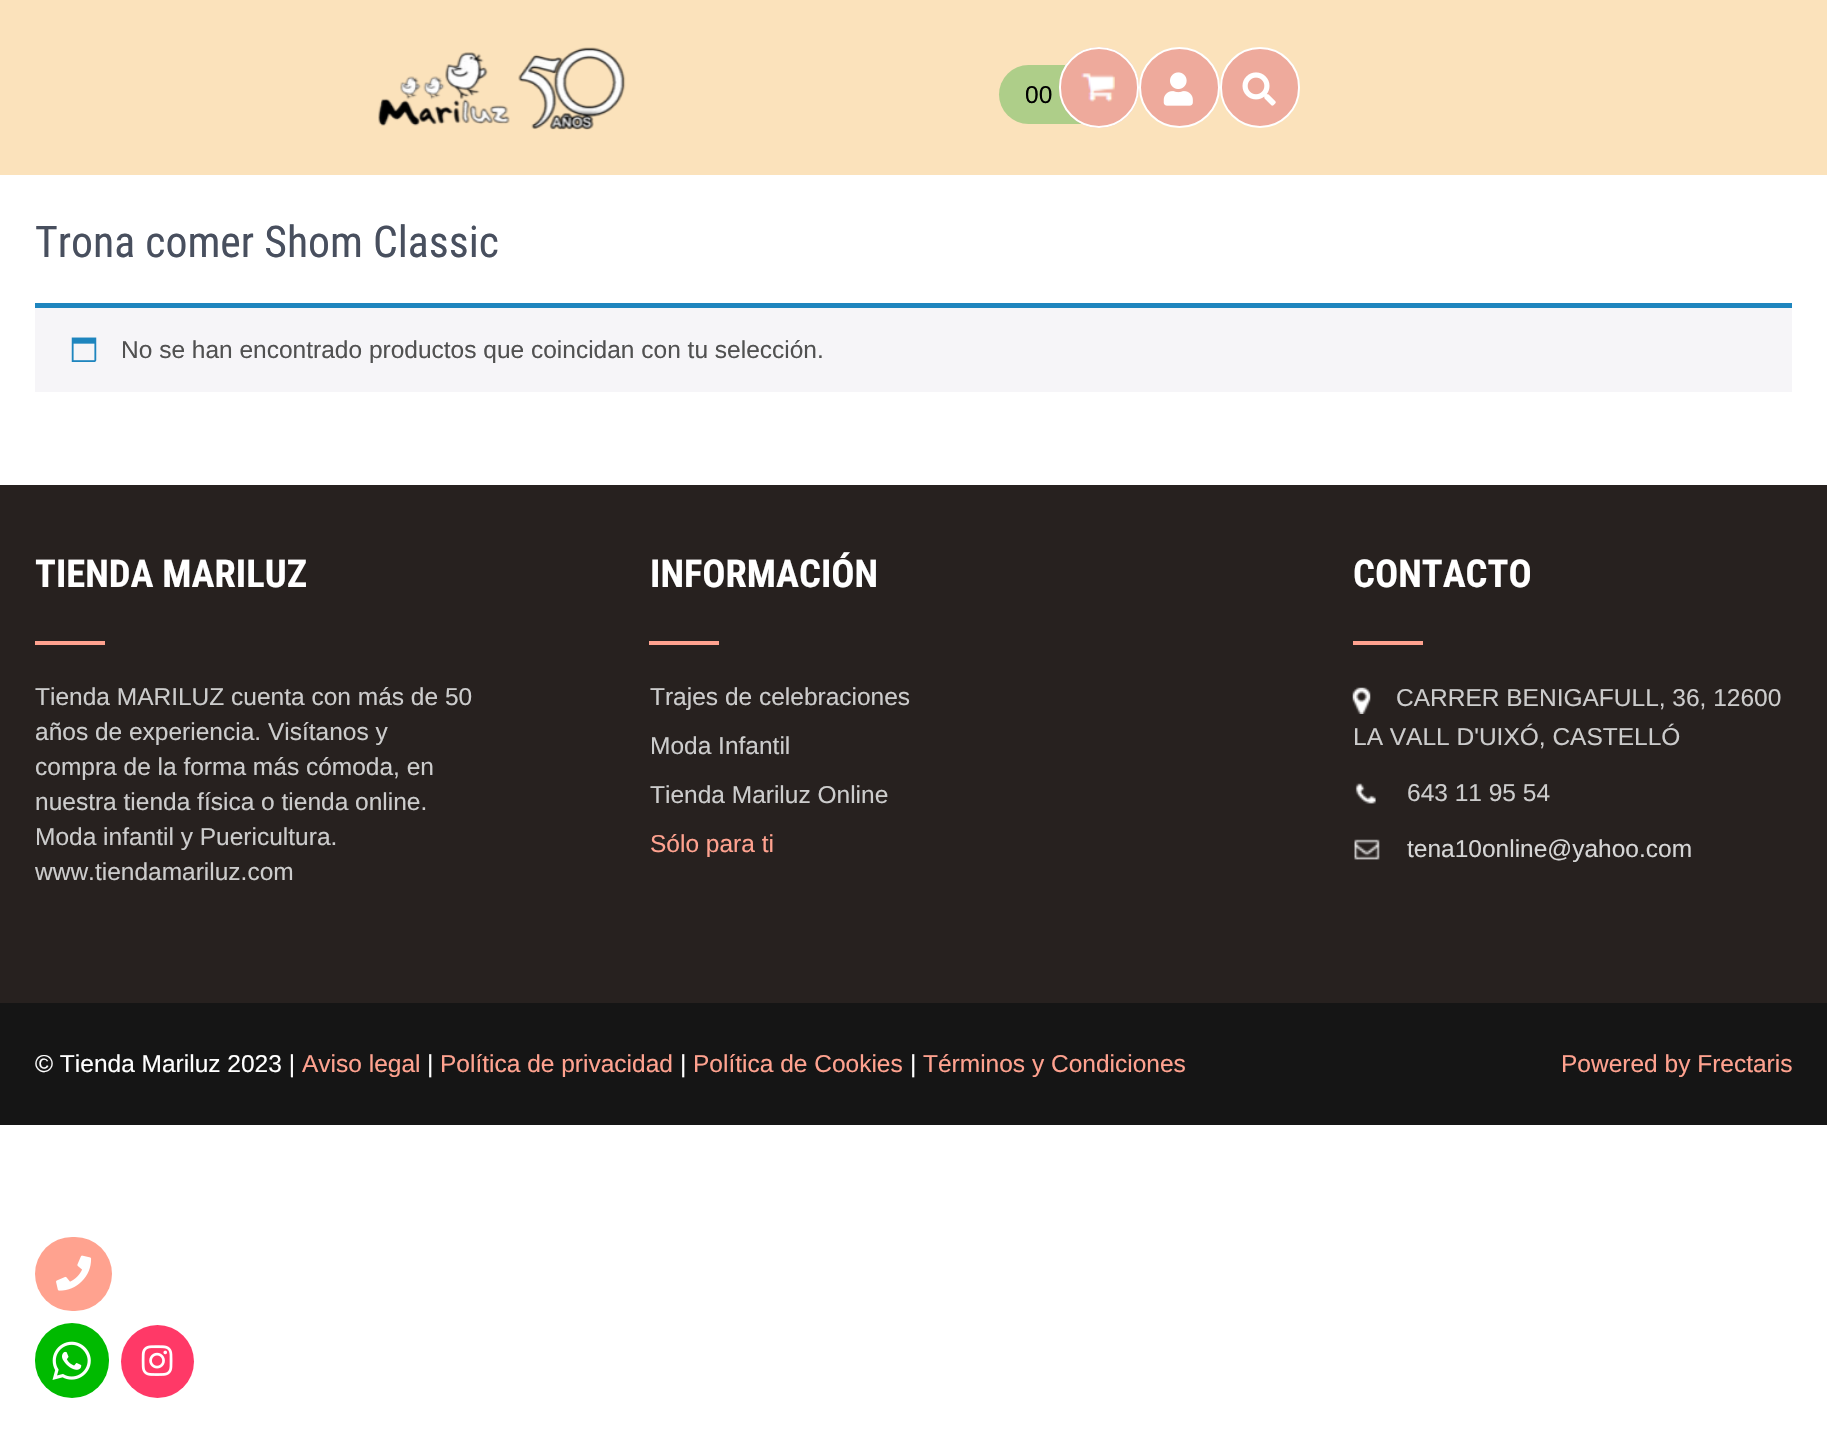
void draw(SkCanvas* canvas) {
  SkPaint paint;
  paint.setAntiAlias(true);
  auto face = [&](const char* family, int weight, float size, bool italic = false) {
    SkFontStyle style(weight, SkFontStyle::kNormal_Width,
      italic ? SkFontStyle::kItalic_Slant : SkFontStyle::kUpright_Slant);
    SkFont result(fontMgr->matchFamilyStyle(family, style), size);
    result.setSubpixel(true);
    return result;
  };
  auto paste = [&](const char* path, float x, float y, float w, float h) {
    auto image = SkImages::DeferredFromEncodedData(SkData::MakeFromFileName(path));
    canvas->drawImageRect(image, SkRect::MakeXYWH(x, y, w, h), SkSamplingOptions());
  };
  canvas->clear(0xffffffff);
  paint.setColor(0xfffbe2bb);
  canvas->drawRect(SkRect::MakeXYWH(0, 0, 1827, 175), paint);
  paste("img/1.png", 378, 47, 248, 83);
  paint.setColor(0xffaece89);
  canvas->drawRoundRect(SkRect::MakeXYWH(999, 65, 123, 59), 29.5f, 29.5f, paint);
  paint.setColor(0xffeeaa9c);
  canvas->drawRoundRect(SkRect::MakeXYWH(1059, 47, 80, 81), 40, 40, paint);
  paste("img/2.png", 1081, 73, 34, 29);
  paint.setStroke(true);
  paint.setStrokeWidth(2);
  paint.setColor(0xffffffff);
  canvas->drawRoundRect(SkRect::MakeXYWH(1060, 48, 78, 79), 39, 39, paint);
  paint.setStroke(false);
  paint.setColor(0xffeeaa9c);
  canvas->drawCircle(1179.5f, 87.5f, 39.5f, paint);
  paint.setStroke(true);
  paint.setColor(0xffffffff);
  canvas->drawCircle(1179.5f, 87.5f, 39.5f, paint);
  paste("img/3.png", 1163, 72, 30, 34);
  paint.setStroke(false);
  paint.setColor(0xffeeaa9c);
  canvas->drawRoundRect(SkRect::MakeXYWH(1221, 48, 78, 79), 39, 39, paint);
  paint.setStroke(true);
  paint.setColor(0xffffffff);
  canvas->drawRoundRect(SkRect::MakeXYWH(1221, 48, 78, 79), 39, 39, paint);
  paste("img/4.png", 1242, 72, 34, 34);
  paint.setStroke(false);
  paint.setColor(0xfff6f5f8);
  canvas->drawRect(SkRect::MakeXYWH(35, 308, 1757, 84), paint);
  paint.setColor(0xff1e85be);
  canvas->drawRect(SkRect::MakeXYWH(35, 303, 1757, 5), paint);
  paste("img/5.png", 71, 337, 26, 25);
  {
    const struct { float x, y, w, h; SkColor color; } items[] = {
      {0, 485, 1827, 518, 0xff27211f},
      {35, 641, 70, 4, 0xffffa28f},
      {649, 641, 70, 4, 0xffffa28f},
      {1353, 641, 70, 4, 0xffffa28f},
    };
    for (auto [x, y, w, h, color] : items) {
      paint.setColor(color);
      canvas->drawRect(SkRect::MakeXYWH(x, y, w, h), paint);
    }
  }
  paste("img/6.png", 1352, 687, 19, 27);
  paste("img/7.png", 1355, 783, 21, 21);
  paste("img/8.png", 1354, 839, 26, 21);
  paint.setColor(0xff151515);
  canvas->drawRect(SkRect::MakeXYWH(0, 1003, 1827, 122), paint);
  paint.setColor(0xffffa28f);
  canvas->drawRoundRect(SkRect::MakeXYWH(35, 1237, 77, 74), 37, 37, paint);
  paste("img/9.png", 56, 1255, 36, 36);
  paint.setColor(0xff00ba00);
  canvas->drawRoundRect(SkRect::MakeXYWH(35, 1323, 74, 75), 37, 37, paint);
  paste("img/10.png", 52, 1341, 39, 39);
  paint.setColor(0xffff3967);
  canvas->drawCircle(157.5f, 1361.5f, 36.5f, paint);
  paste("img/11.png", 141, 1345, 32, 31);
  auto f0 = face("Liberation Sans", 400, 24.5f);
  paint.setColor(0xff000000);
  canvas->drawString("00", 1025, 103, f0, paint);
  auto f1 = face("Roboto Condensed", 400, 43.75f);
  paint.setColor(0xff484f5e);
  canvas->drawString("Trona comer Shom Classic", 35, 257, f1, paint);
  paint.setColor(0xff515151);
  canvas->drawString("No se han encontrado productos que coincidan con tu selección.", 121, 358, f0, paint);
  auto f2 = face("Roboto Condensed", 700, 38.5f);
  paint.setColor(0xffffffff);
  canvas->drawString("TIENDA MARILUZ", 35, 587, f2, paint);
  paint.setColor(0xffcccccc);
  {
    const struct { const char* s; float x, y; } items[] = {
      {"Tienda MARILUZ cuenta con más de 50", 35, 705},
      {"años de experiencia. Visítanos y", 35, 740},
      {"compra de la forma más cómoda, en", 35, 775},
      {"nuestra tienda física o tienda online.", 35, 810},
      {"Moda infantil y Puericultura.", 35, 845},
      {"www.tiendamariluz.com", 35, 880},
    };
    for (auto [s, x, y] : items) {
      canvas->drawString(s, x, y, f0, paint);
    }
  }
  paint.setColor(0xffffffff);
  canvas->drawString("INFORMACIÓN", 650, 587, f2, paint);
  paint.setColor(0xffcccccc);
  {
    const struct { const char* s; float x, y; } items[] = {
      {"Trajes de celebraciones", 650, 705},
      {"Moda Infantil", 650, 754},
      {"Tienda Mariluz Online", 650, 803},
    };
    for (auto [s, x, y] : items) {
      canvas->drawString(s, x, y, f0, paint);
    }
  }
  paint.setColor(0xffffa28f);
  canvas->drawString("Sólo para ti", 650, 852, f0, paint);
  paint.setColor(0xffffffff);
  canvas->drawString("CONTACTO", 1353, 587, f2, paint);
  paint.setColor(0xffcccccc);
  {
    const struct { const char* s; float x, y; } items[] = {
      {"CARRER BENIGAFULL, 36, 12600", 1396, 706},
      {"LA VALL D'UIXÓ, CASTELLÓ", 1353, 745},
      {"643 11 95 54", 1407, 801},
    };
    for (auto [s, x, y] : items) {
      canvas->drawString(s, x, y, f0, paint);
    }
  }
  paint.setColor(0xffd6d6d6);
  canvas->drawString("tena10online@yahoo.com", 1407, 857, f0, paint);
  paint.setColor(0xffffffff);
  canvas->drawString("© Tienda Mariluz 2023 |", 35, 1072, f0, paint);
  paint.setColor(0xffffa28f);
  canvas->drawString("Aviso legal", 302, 1072, f0, paint);
  paint.setColor(0xffffffff);
  canvas->drawString("|", 427, 1072, f0, paint);
  paint.setColor(0xffffa28f);
  canvas->drawString("Política de privacidad", 440, 1072, f0, paint);
  paint.setColor(0xffffffff);
  canvas->drawString("|", 680, 1072, f0, paint);
  paint.setColor(0xffffa28f);
  canvas->drawString("Política de Cookies", 693, 1072, f0, paint);
  paint.setColor(0xffffffff);
  canvas->drawString("|", 910, 1072, f0, paint);
  paint.setColor(0xffffa28f);
  canvas->drawString("Términos y Condiciones", 923, 1072, f0, paint);
  canvas->drawString("Powered by Frectaris", 1561, 1072, f0, paint);
}
